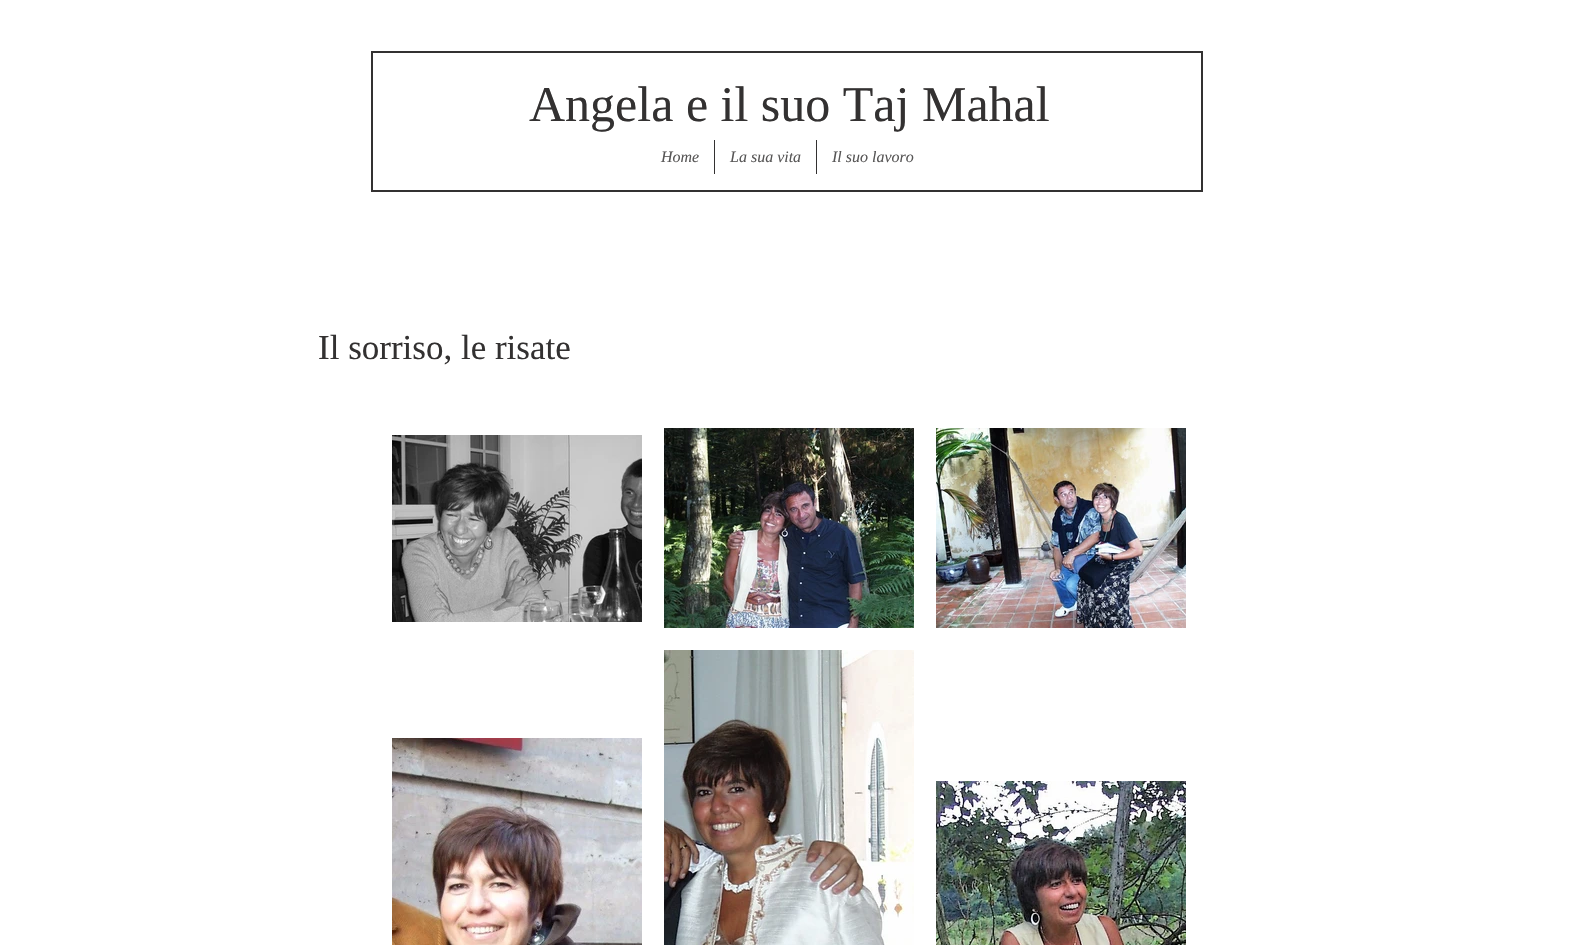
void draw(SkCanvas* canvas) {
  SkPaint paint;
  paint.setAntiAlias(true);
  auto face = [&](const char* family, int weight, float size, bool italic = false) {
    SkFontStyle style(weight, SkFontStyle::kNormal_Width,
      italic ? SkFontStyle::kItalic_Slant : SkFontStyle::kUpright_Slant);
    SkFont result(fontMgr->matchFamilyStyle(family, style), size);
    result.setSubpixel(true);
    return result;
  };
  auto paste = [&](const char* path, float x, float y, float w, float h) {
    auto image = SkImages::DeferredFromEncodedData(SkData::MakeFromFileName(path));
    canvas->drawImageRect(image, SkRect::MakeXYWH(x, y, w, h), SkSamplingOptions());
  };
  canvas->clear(0xffffffff);
  paint.setStroke(true);
  paint.setStrokeWidth(2);
  paint.setColor(0xff333131);
  canvas->drawRect(SkRect::MakeXYWH(372, 52, 830, 139), paint);
  paint.setStroke(false);
  canvas->drawRect(SkRect::MakeXYWH(714, 140, 1, 34), paint);
  canvas->drawRect(SkRect::MakeXYWH(816, 140, 1, 34), paint);
  paste("img/1.png", 392, 435, 250, 187);
  paste("img/2.png", 664, 428, 250, 200);
  paste("img/3.png", 936, 428, 250, 200);
  paste("img/4.png", 392, 738, 250, 207);
  paste("img/5.png", 664, 650, 250, 295);
  paste("img/6.png", 936, 781, 250, 164);
  auto f0 = face("Liberation Serif", 400, 50);
  canvas->drawString("Angela e il suo Taj Mahal", 529, 121, f0, paint);
  auto f1 = face("Liberation Serif", 400, 16, true);
  paint.setColor(0xff575656);
  {
    const struct { const char* s; float x, y; } items[] = {
      {"Home", 661, 162},
      {"La sua vita", 730, 162},
      {"Il suo lavoro", 832, 162},
    };
    for (auto [s, x, y] : items) {
      canvas->drawString(s, x, y, f1, paint);
    }
  }
  auto f2 = face("Liberation Serif", 400, 35);
  paint.setColor(0xff333131);
  canvas->drawString("Il sorriso, le risate", 318, 359, f2, paint);
}
